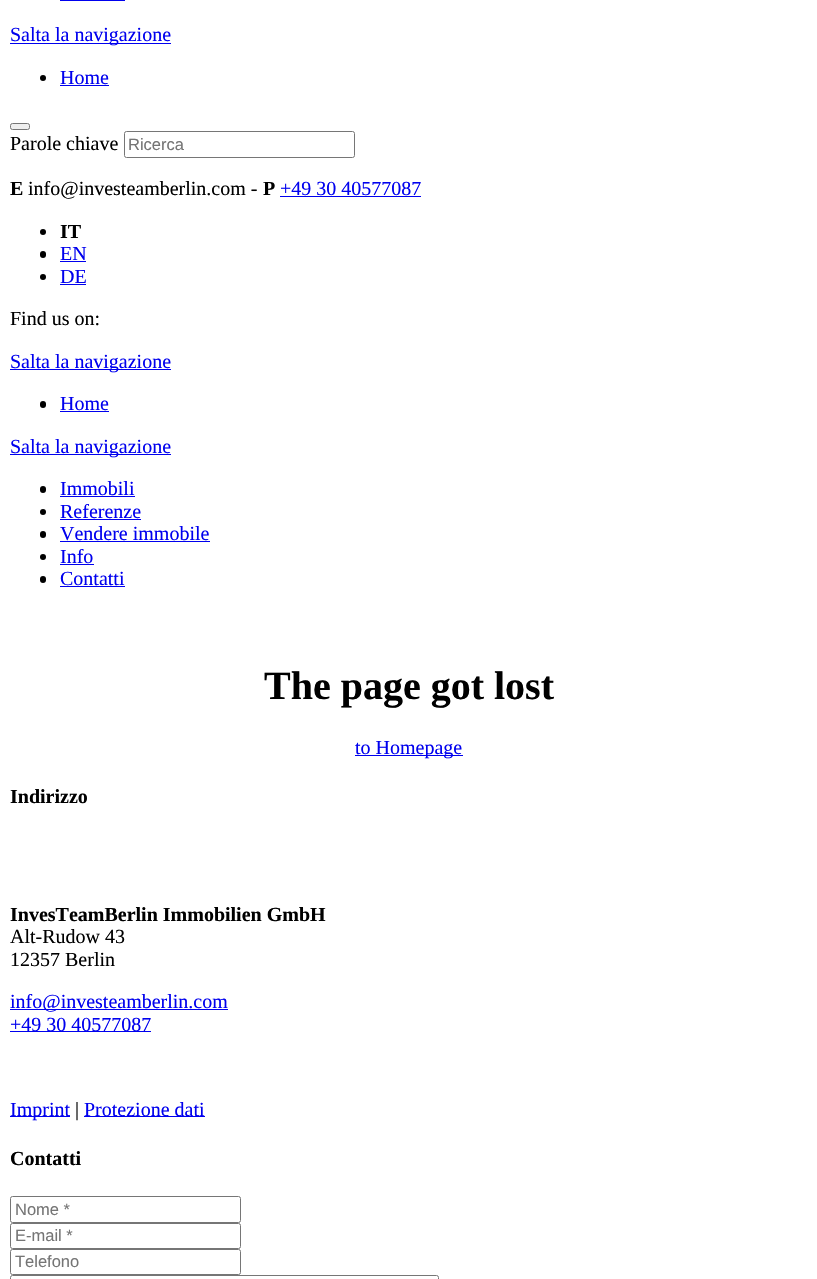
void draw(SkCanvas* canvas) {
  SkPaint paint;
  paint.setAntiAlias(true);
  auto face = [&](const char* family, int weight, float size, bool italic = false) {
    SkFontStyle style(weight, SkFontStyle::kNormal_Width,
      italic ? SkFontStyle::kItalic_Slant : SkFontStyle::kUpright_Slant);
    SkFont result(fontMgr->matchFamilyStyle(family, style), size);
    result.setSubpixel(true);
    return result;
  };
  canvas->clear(0xffffffff);
  paint.setColor(0xff0000ee);
  canvas->drawRect(SkRect::MakeXYWH(60, 0, 65, 1), paint);
  canvas->drawRect(SkRect::MakeXYWH(10, 43, 161, 1), paint);
  paint.setColor(0xff000000);
  canvas->drawCircle(43, 78, 3, paint);
  paint.setColor(0xff0000ee);
  canvas->drawRect(SkRect::MakeXYWH(60, 85, 49, 1), paint);
  paint.setColor(0xffefefef);
  canvas->drawRoundRect(SkRect::MakeXYWH(10.5f, 123.5f, 19, 6), 2, 2, paint);
  paint.setStroke(true);
  paint.setStrokeWidth(1);
  paint.setColor(0xff767676);
  canvas->drawRoundRect(SkRect::MakeXYWH(10.5f, 123.5f, 19, 6), 2, 2, paint);
  canvas->drawRoundRect(SkRect::MakeXYWH(124.5f, 131.5f, 230, 26), 2, 2, paint);
  paint.setStroke(false);
  paint.setColor(0xff0000ee);
  canvas->drawRect(SkRect::MakeXYWH(280, 196, 141, 1), paint);
  paint.setColor(0xff000000);
  canvas->drawCircle(43, 232, 3, paint);
  canvas->drawRoundRect(SkRect::MakeXYWH(40, 251, 6, 7), 3, 3, paint);
  paint.setColor(0xff0000ee);
  canvas->drawRect(SkRect::MakeXYWH(60, 261, 26, 1), paint);
  paint.setColor(0xff000000);
  canvas->drawCircle(43, 277, 3, paint);
  paint.setColor(0xff0000ee);
  canvas->drawRect(SkRect::MakeXYWH(60, 284, 26, 1), paint);
  canvas->drawRect(SkRect::MakeXYWH(10, 369, 161, 1), paint);
  paint.setColor(0xff000000);
  canvas->drawRoundRect(SkRect::MakeXYWH(40, 401, 6, 7), 3, 3, paint);
  paint.setColor(0xff0000ee);
  canvas->drawRect(SkRect::MakeXYWH(60, 411, 49, 1), paint);
  canvas->drawRect(SkRect::MakeXYWH(10, 454, 161, 1), paint);
  paint.setColor(0xff000000);
  canvas->drawRoundRect(SkRect::MakeXYWH(40, 486, 6, 7), 3, 3, paint);
  paint.setColor(0xff0000ee);
  canvas->drawRect(SkRect::MakeXYWH(60, 496, 75, 1), paint);
  paint.setColor(0xff000000);
  canvas->drawCircle(43, 512, 3, paint);
  paint.setColor(0xff0000ee);
  canvas->drawRect(SkRect::MakeXYWH(60, 519, 81, 1), paint);
  paint.setColor(0xff000000);
  canvas->drawRoundRect(SkRect::MakeXYWH(40, 531, 6, 7), 3, 3, paint);
  paint.setColor(0xff0000ee);
  canvas->drawRect(SkRect::MakeXYWH(60, 541, 150, 1), paint);
  paint.setColor(0xff000000);
  canvas->drawCircle(43, 557, 3, paint);
  paint.setColor(0xff0000ee);
  canvas->drawRect(SkRect::MakeXYWH(60, 564, 34, 1), paint);
  paint.setColor(0xff000000);
  canvas->drawRoundRect(SkRect::MakeXYWH(40, 576, 6, 7), 3, 3, paint);
  {
    const struct { float x, y, w, h; SkColor color; } items[] = {
      {60, 586, 65, 1, 0xff0000ee},
      {355, 755, 108, 1, 0xff0000ee},
      {10, 1009, 218, 1, 0xff0000ee},
      {10, 1031, 141, 1, 0xff0000ee},
      {10, 1116, 60, 1, 0xff0000ee},
      {84, 1116, 121, 1, 0xff0000ee},
    };
    for (auto [x, y, w, h, color] : items) {
      paint.setColor(color);
      canvas->drawRect(SkRect::MakeXYWH(x, y, w, h), paint);
    }
  }
  paint.setStroke(true);
  paint.setColor(0xff767676);
  canvas->drawRoundRect(SkRect::MakeXYWH(10.5f, 1196.5f, 230, 26), 2, 2, paint);
  canvas->drawRoundRect(SkRect::MakeXYWH(10.5f, 1223.5f, 230, 25), 2, 2, paint);
  canvas->drawRoundRect(SkRect::MakeXYWH(10.5f, 1249.5f, 230, 25), 2, 2, paint);
  canvas->drawRoundRect(SkRect::MakeXYWH(10.5f, 1275.5f, 428, 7), 2, 2, paint);
  auto f0 = face("Liberation Serif", 400, 20);
  paint.setStroke(false);
  paint.setColor(0xff0000ee);
  canvas->drawString("Salta la navigazione", 10, 41, f0, paint);
  canvas->drawString("Home", 60, 84, f0, paint);
  paint.setColor(0xff000000);
  canvas->drawString("Parole chiave", 10, 150, f0, paint);
  auto f1 = face("Liberation Sans", 400, 16.5f);
  paint.setColor(0xff757575);
  canvas->drawString("Ricerca", 128, 150, f1, paint);
  auto f2 = face("Liberation Serif", 700, 20);
  paint.setColor(0xff000000);
  canvas->drawString("E", 10, 195, f2, paint);
  canvas->drawString("info@investeamberlin.com -", 28, 195, f0, paint);
  canvas->drawString("P", 263, 195, f2, paint);
  paint.setColor(0xff0000ee);
  canvas->drawString("+49 30 40577087", 280, 195, f0, paint);
  paint.setColor(0xff000000);
  canvas->drawString("IT", 60, 238, f2, paint);
  paint.setColor(0xff0000ee);
  canvas->drawString("EN", 60, 260, f0, paint);
  canvas->drawString("DE", 60, 283, f0, paint);
  paint.setColor(0xff000000);
  canvas->drawString("Find us on:", 10, 325, f0, paint);
  paint.setColor(0xff0000ee);
  {
    const struct { const char* s; float x, y; } items[] = {
      {"Salta la navigazione", 10, 368},
      {"Home", 60, 410},
      {"Salta la navigazione", 10, 453},
      {"Immobili", 60, 495},
      {"Referenze", 60, 518},
      {"Vendere immobile", 60, 540},
      {"Info", 60, 563},
      {"Contatti", 60, 585},
    };
    for (auto [s, x, y] : items) {
      canvas->drawString(s, x, y, f0, paint);
    }
  }
  auto f3 = face("Liberation Serif", 700, 40);
  paint.setColor(0xff000000);
  canvas->drawString("The page got lost", 264, 699, f3, paint);
  paint.setColor(0xff0000ee);
  canvas->drawString("to Homepage", 355, 754, f0, paint);
  paint.setColor(0xff000000);
  canvas->drawString("Indirizzo", 10, 803, f2, paint);
  canvas->drawString("InvesTeamBerlin Immobilien GmbH", 10, 921, f2, paint);
  canvas->drawString("Alt-Rudow 43", 10, 943, f0, paint);
  canvas->drawString("12357 Berlin", 10, 966, f0, paint);
  paint.setColor(0xff0000ee);
  {
    const struct { const char* s; float x, y; } items[] = {
      {"info@investeamberlin.com", 10, 1008},
      {"+49 30 40577087", 10, 1031},
      {"Imprint", 10, 1116},
    };
    for (auto [s, x, y] : items) {
      canvas->drawString(s, x, y, f0, paint);
    }
  }
  paint.setColor(0xff000000);
  canvas->drawString("|", 75, 1116, f0, paint);
  paint.setColor(0xff0000ee);
  canvas->drawString("Protezione dati", 84, 1116, f0, paint);
  paint.setColor(0xff000000);
  canvas->drawString("Contatti", 10, 1165, f2, paint);
  paint.setColor(0xff757575);
  {
    const struct { const char* s; float x, y; } items[] = {
      {"Nome *", 15, 1215},
      {"E-mail *", 15, 1241},
      {"Telefono", 15, 1267},
    };
    for (auto [s, x, y] : items) {
      canvas->drawString(s, x, y, f1, paint);
    }
  }
}
